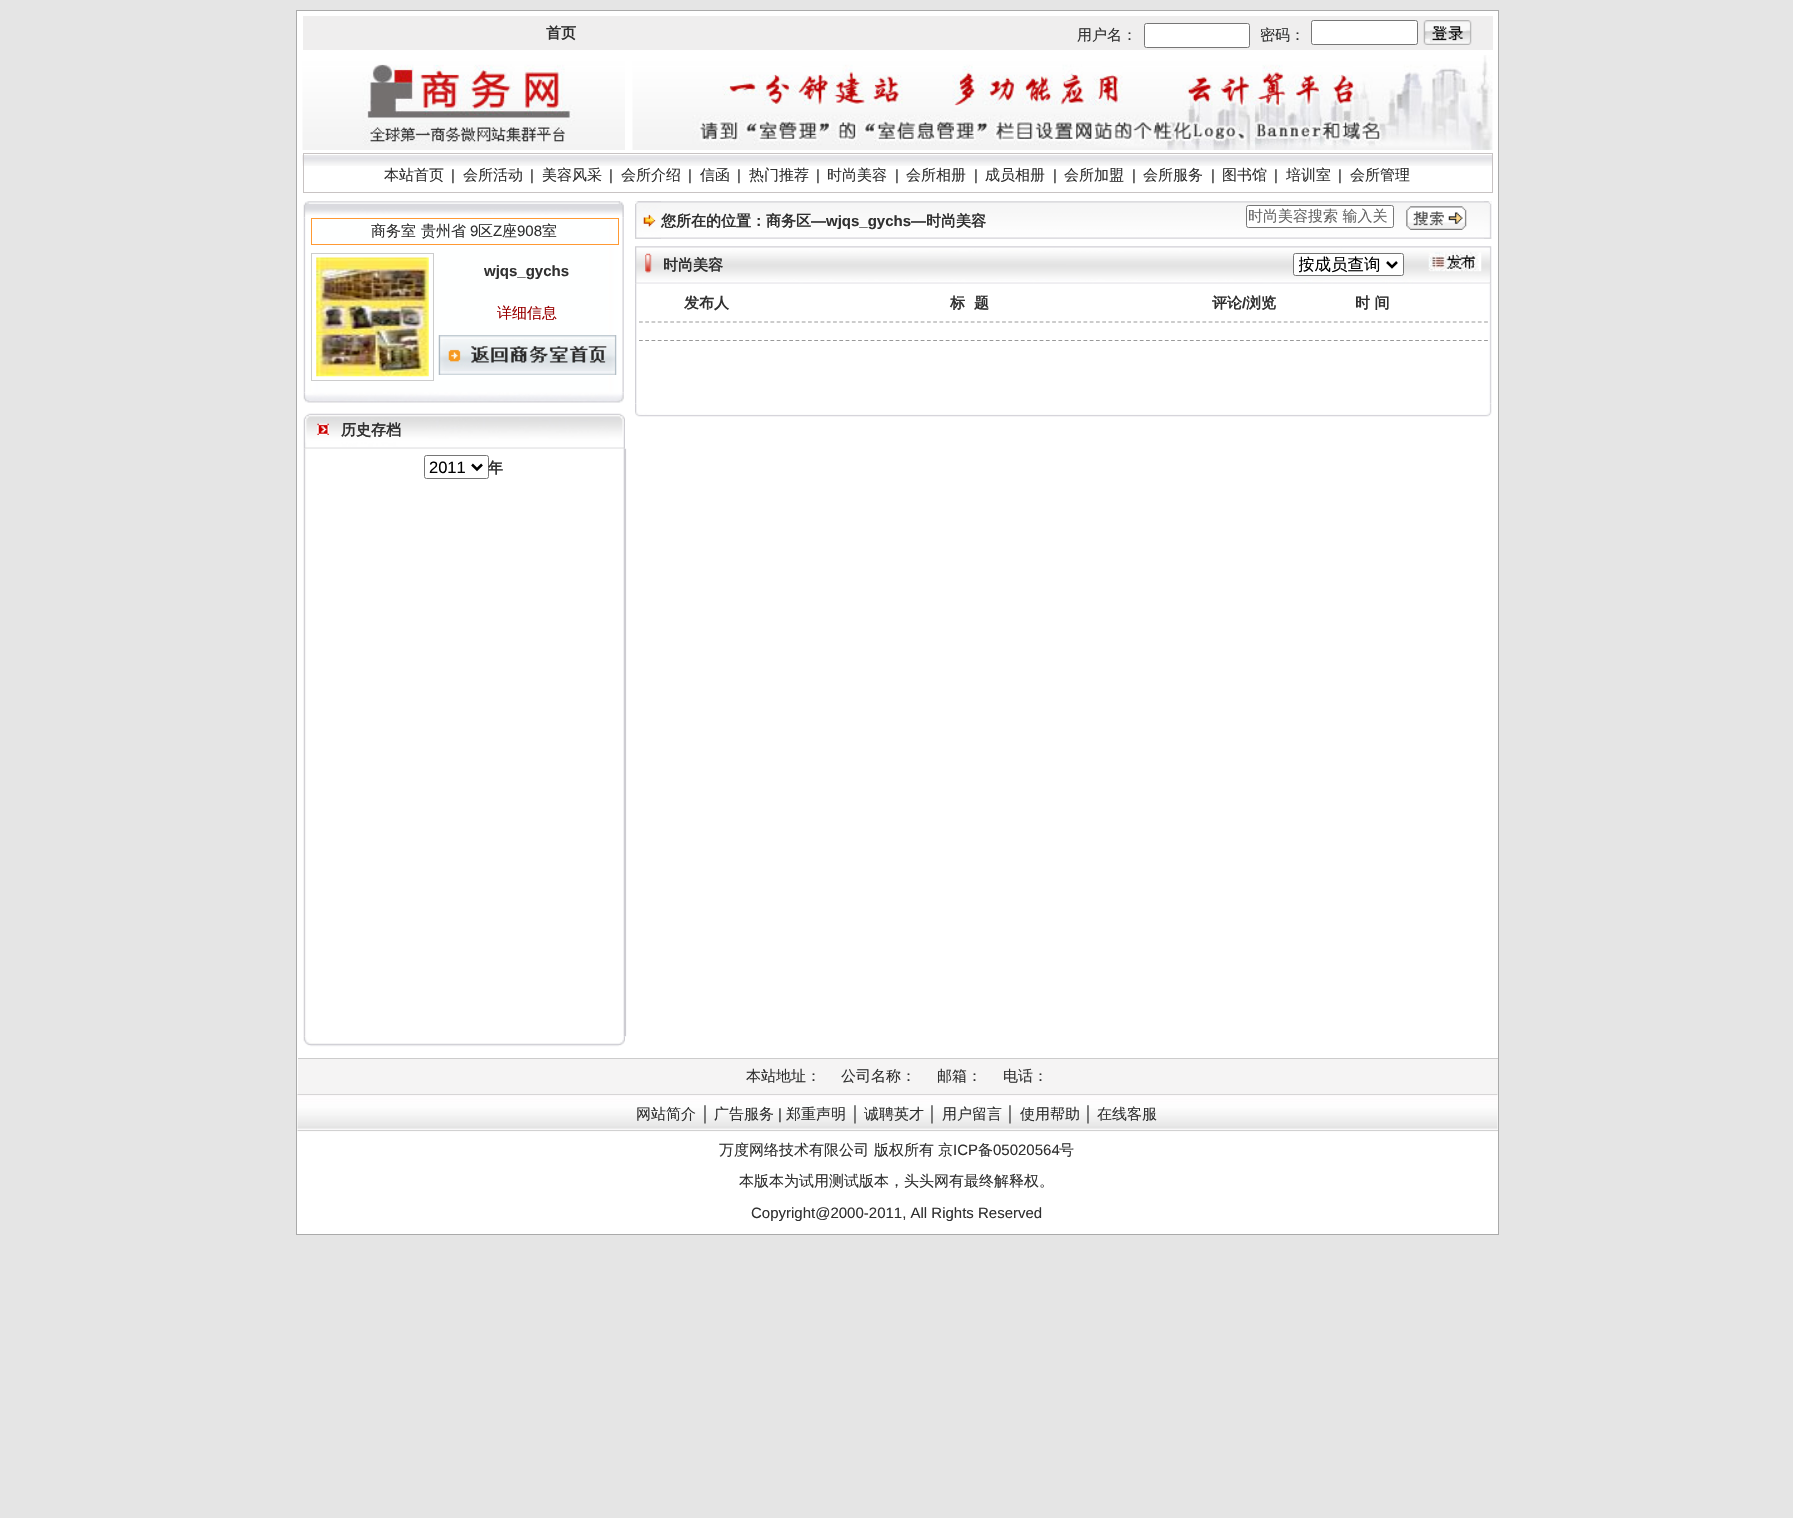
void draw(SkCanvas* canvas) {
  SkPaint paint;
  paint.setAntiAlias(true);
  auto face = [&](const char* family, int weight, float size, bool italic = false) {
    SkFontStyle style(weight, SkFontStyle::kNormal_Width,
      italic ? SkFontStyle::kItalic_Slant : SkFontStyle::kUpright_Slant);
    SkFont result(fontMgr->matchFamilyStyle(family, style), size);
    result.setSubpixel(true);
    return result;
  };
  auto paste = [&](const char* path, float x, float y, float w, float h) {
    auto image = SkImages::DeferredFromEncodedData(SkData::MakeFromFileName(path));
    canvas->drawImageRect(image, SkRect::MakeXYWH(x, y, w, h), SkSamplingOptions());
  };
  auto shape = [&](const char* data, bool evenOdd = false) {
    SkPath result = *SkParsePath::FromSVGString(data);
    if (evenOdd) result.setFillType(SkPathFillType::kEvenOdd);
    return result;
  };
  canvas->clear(0xffe5e5e5);
  paint.setColor(0xffffffff);
  canvas->drawRect(SkRect::MakeXYWH(296.5f, 10.5f, 1202, 1224), paint);
  paint.setStroke(true);
  paint.setStrokeWidth(1);
  paint.setColor(0xffaaaaaa);
  canvas->drawRect(SkRect::MakeXYWH(296.5f, 10.5f, 1202, 1224), paint);
  paint.setStroke(false);
  paint.setColor(0xffefeeee);
  canvas->drawRect(SkRect::MakeXYWH(303, 16, 1190, 34), paint);
  paint.setColor(0xffffffff);
  canvas->drawRoundRect(SkRect::MakeXYWH(1144.5f, 23.5f, 105, 24), 2, 2, paint);
  paint.setStroke(true);
  paint.setColor(0xff767676);
  canvas->drawRoundRect(SkRect::MakeXYWH(1144.5f, 23.5f, 105, 24), 2, 2, paint);
  paint.setStroke(false);
  paint.setColor(0xffffffff);
  canvas->drawRoundRect(SkRect::MakeXYWH(1311.5f, 20.5f, 106, 24), 2, 2, paint);
  paint.setStroke(true);
  paint.setColor(0xff767676);
  canvas->drawRoundRect(SkRect::MakeXYWH(1311.5f, 20.5f, 106, 24), 2, 2, paint);
  paste("img/1.png", 1423, 20, 49, 25);
  paste("img/2.png", 302, 61, 323, 89);
  paste("img/3.png", 632, 55, 861, 95);
  paste("img/4.png", 302, 155, 1190, 11);
  paint.setColor(0xffc8c3c3);
  canvas->drawRect(SkRect::MakeXYWH(303.5f, 153.5f, 1189, 39), paint);
  paste("img/5.png", 303, 201, 321, 17);
  paste("img/6.png", 303, 217, 321, 176);
  paint.setColor(0xffff9934);
  canvas->drawRect(SkRect::MakeXYWH(311.5f, 218.5f, 307, 26), paint);
  paint.setColor(0xffcccccc);
  canvas->drawRect(SkRect::MakeXYWH(311.5f, 253.5f, 122, 127), paint);
  paste("img/7.png", 316, 257, 113, 120);
  paste("img/8.png", 438, 335, 179, 40);
  paste("img/9.png", 303, 392, 321, 11);
  paste("img/10.png", 303, 413, 322, 36);
  paste("img/11.png", 317, 423, 12, 12);
  paste("img/12.png", 303, 448, 324, 589);
  paint.setColor(0xff767676);
  canvas->drawRoundRect(SkRect::MakeXYWH(424.5f, 455.5f, 64, 23), 2, 2, paint);
  paint.setStrokeWidth(2.5f);
  paint.setColor(0xff000000);
  canvas->drawPath(shape("M472 464.5L477 469.5L482 464.5"), paint);
  paste("img/13.png", 303, 1036, 322, 11);
  paste("img/14.png", 635, 201, 857, 38);
  paste("img/15.png", 635, 201, 26, 38);
  paint.setStroke(false);
  paint.setColor(0xffffffff);
  canvas->drawRoundRect(SkRect::MakeXYWH(1246.5f, 205.5f, 147, 22), 2, 2, paint);
  paint.setStroke(true);
  paint.setStrokeWidth(1);
  paint.setColor(0xff767676);
  canvas->drawRoundRect(SkRect::MakeXYWH(1246.5f, 205.5f, 147, 22), 2, 2, paint);
  paste("img/16.png", 1406, 206, 61, 24);
  paste("img/17.png", 1484, 201, 8, 38);
  paste("img/18.png", 635, 246, 857, 38);
  paste("img/19.png", 645, 253, 7, 20);
  paint.setStroke(false);
  paint.setColor(0xffffffff);
  canvas->drawRoundRect(SkRect::MakeXYWH(1293.5f, 253.5f, 110, 22), 2, 2, paint);
  paint.setStroke(true);
  paint.setColor(0xff767676);
  canvas->drawRoundRect(SkRect::MakeXYWH(1293.5f, 253.5f, 110, 22), 2, 2, paint);
  paint.setStrokeWidth(2.5f);
  paint.setColor(0xff000000);
  canvas->drawPath(shape("M1387 262L1392 267L1397 262"), paint);
  paste("img/20.png", 1428, 252, 54, 20);
  paste("img/21.png", 635, 283, 857, 121);
  paint.setStrokeWidth(1.2f);
  paint.setColor(0xff999999);
  paint.setPathEffect(SkDashPathEffect::Make({{3.75f, 2.51f}}, 0));
  canvas->drawPath(shape("M639 322H1489"), paint);
  paint.setPathEffect(nullptr);
  paint.setPathEffect(SkDashPathEffect::Make({{3.75f, 2.51f}}, 0));
  canvas->drawPath(shape("M639 340.5H1489"), paint);
  paint.setPathEffect(nullptr);
  paste("img/22.png", 635, 404, 857, 13);
  paint.setStroke(false);
  paint.setColor(0xffcccccc);
  canvas->drawRect(SkRect::MakeXYWH(298, 1058, 1200, 1), paint);
  paint.setColor(0xfff5f4f4);
  canvas->drawRect(SkRect::MakeXYWH(298, 1059, 1200, 35), paint);
  paste("img/23.png", 297, 1094, 1201, 38);
  paint.setColor(0xffd1d1d1);
  canvas->drawRect(SkRect::MakeXYWH(298, 1130, 1200, 1), paint);
  auto f0 = face("WenQuanYi Zen Hei", 700, 15);
  paint.setColor(0xff303030);
  canvas->drawString("首页", 546, 38, f0, paint);
  auto f1 = face("WenQuanYi Zen Hei", 500, 15);
  {
    const struct { const char* s; float x, y; } items[] = {
      {"用户名：", 1077, 40},
      {"密码：", 1260, 40},
      {"本站首页", 384, 180},
    };
    for (auto [s, x, y] : items) {
      canvas->drawString(s, x, y, f1, paint);
    }
  }
  auto f2 = face("Liberation Sans", 400, 15);
  canvas->drawString("|", 451, 180, f2, paint);
  canvas->drawString("会所活动", 463, 180, f1, paint);
  canvas->drawString("|", 530, 180, f2, paint);
  canvas->drawString("美容风采", 542, 180, f1, paint);
  canvas->drawString("|", 609, 180, f2, paint);
  canvas->drawString("会所介绍", 621, 180, f1, paint);
  canvas->drawString("|", 688, 180, f2, paint);
  canvas->drawString("信函", 700, 180, f1, paint);
  canvas->drawString("|", 737, 180, f2, paint);
  canvas->drawString("热门推荐", 749, 180, f1, paint);
  canvas->drawString("|", 816, 180, f2, paint);
  canvas->drawString("时尚美容", 827, 180, f1, paint);
  canvas->drawString("|", 895, 180, f2, paint);
  canvas->drawString("会所相册", 906, 180, f1, paint);
  canvas->drawString("|", 974, 180, f2, paint);
  canvas->drawString("成员相册", 985, 180, f1, paint);
  canvas->drawString("|", 1053, 180, f2, paint);
  canvas->drawString("会所加盟", 1064, 180, f1, paint);
  canvas->drawString("|", 1132, 180, f2, paint);
  canvas->drawString("会所服务", 1143, 180, f1, paint);
  canvas->drawString("|", 1211, 180, f2, paint);
  canvas->drawString("图书馆", 1222, 180, f1, paint);
  canvas->drawString("|", 1274, 180, f2, paint);
  canvas->drawString("培训室", 1286, 180, f1, paint);
  canvas->drawString("|", 1338, 180, f2, paint);
  {
    const struct { const char* s; float x, y; } items[] = {
      {"会所管理", 1350, 180},
      {"商务室", 371, 236},
      {"贵州省", 421, 236},
    };
    for (auto [s, x, y] : items) {
      canvas->drawString(s, x, y, f1, paint);
    }
  }
  canvas->drawString("9", 470, 236, f2, paint);
  canvas->drawString("区", 478, 236, f1, paint);
  canvas->drawString("Z", 493, 236, f2, paint);
  canvas->drawString("座", 502, 236, f1, paint);
  canvas->drawString("908", 517, 236, f2, paint);
  canvas->drawString("室", 542, 236, f1, paint);
  auto f3 = face("Liberation Sans", 700, 15);
  canvas->drawString("wjqs_gychs", 484, 276, f3, paint);
  paint.setColor(0xff990000);
  canvas->drawString("详细信息", 497, 318, f1, paint);
  paint.setColor(0xff303030);
  canvas->drawString("历史存档", 341, 435, f0, paint);
  auto f4 = face("Liberation Sans", 400, 16.5f);
  paint.setColor(0xff000000);
  canvas->drawString("2011", 429, 473, f4, paint);
  paint.setColor(0xff303030);
  canvas->drawString("年", 488, 473, f0, paint);
  canvas->drawString("您所在的位置：商务区", 661, 226, f0, paint);
  canvas->drawString("—wjqs_gychs—", 811, 226, f3, paint);
  canvas->drawString("时尚美容", 926, 226, f0, paint);
  paint.setColor(0xff666666);
  canvas->drawString("时尚美容搜索 输入关", 1248, 221, f1, paint);
  paint.setColor(0xff303030);
  canvas->drawString("时尚美容", 663, 270, f0, paint);
  canvas->save();
  canvas->clipRect(SkRect::MakeXYWH(1299, 254, 84, 21));
  auto f5 = face("WenQuanYi Zen Hei", 500, 16.5f);
  paint.setColor(0xff000000);
  canvas->drawString("按成员查询", 1298, 270, f5, paint);
  canvas->restore();
  paint.setColor(0xff303030);
  {
    const struct { const char* s; float x, y; } items[] = {
      {"发布人", 684, 308},
      {"标", 950, 308},
      {"题", 974, 308},
      {"评论", 1212, 308},
    };
    for (auto [s, x, y] : items) {
      canvas->drawString(s, x, y, f0, paint);
    }
  }
  canvas->drawString("/", 1242, 308, f3, paint);
  canvas->drawString("浏览", 1246, 308, f0, paint);
  canvas->drawString("时 间", 1355, 308, f0, paint);
  {
    const struct { const char* s; float x, y; } items[] = {
      {"本站地址：", 746, 1081},
      {"公司名称：", 841, 1081},
      {"邮箱：", 937, 1081},
      {"电话：", 1003, 1081},
      {"网站简介", 636, 1119},
    };
    for (auto [s, x, y] : items) {
      canvas->drawString(s, x, y, f1, paint);
    }
  }
  canvas->drawString("│", 701, 1119, f2, paint);
  canvas->drawString("广告服务", 714, 1119, f1, paint);
  canvas->drawString("|", 778, 1119, f2, paint);
  canvas->drawString("郑重声明", 786, 1119, f1, paint);
  canvas->drawString("│", 851, 1119, f2, paint);
  canvas->drawString("诚聘英才", 864, 1119, f1, paint);
  canvas->drawString("│", 928, 1119, f2, paint);
  canvas->drawString("用户留言", 942, 1119, f1, paint);
  canvas->drawString("│", 1006, 1119, f2, paint);
  canvas->drawString("使用帮助", 1020, 1119, f1, paint);
  canvas->drawString("│", 1084, 1119, f2, paint);
  {
    const struct { const char* s; float x, y; } items[] = {
      {"在线客服", 1097, 1119},
      {"万度网络技术有限公司", 719, 1155},
      {"版权所有", 874, 1155},
      {"京", 938, 1155},
    };
    for (auto [s, x, y] : items) {
      canvas->drawString(s, x, y, f1, paint);
    }
  }
  canvas->drawString("ICP", 953, 1155, f2, paint);
  canvas->drawString("备", 978, 1155, f1, paint);
  canvas->drawString("05020564", 993, 1155, f2, paint);
  canvas->drawString("号", 1059, 1155, f1, paint);
  canvas->drawString("本版本为试用测试版本，头头网有最终解释权。", 739, 1186, f1, paint);
  canvas->drawString("Copyright@2000-2011, All Rights Reserved", 751, 1218, f2, paint);
}
